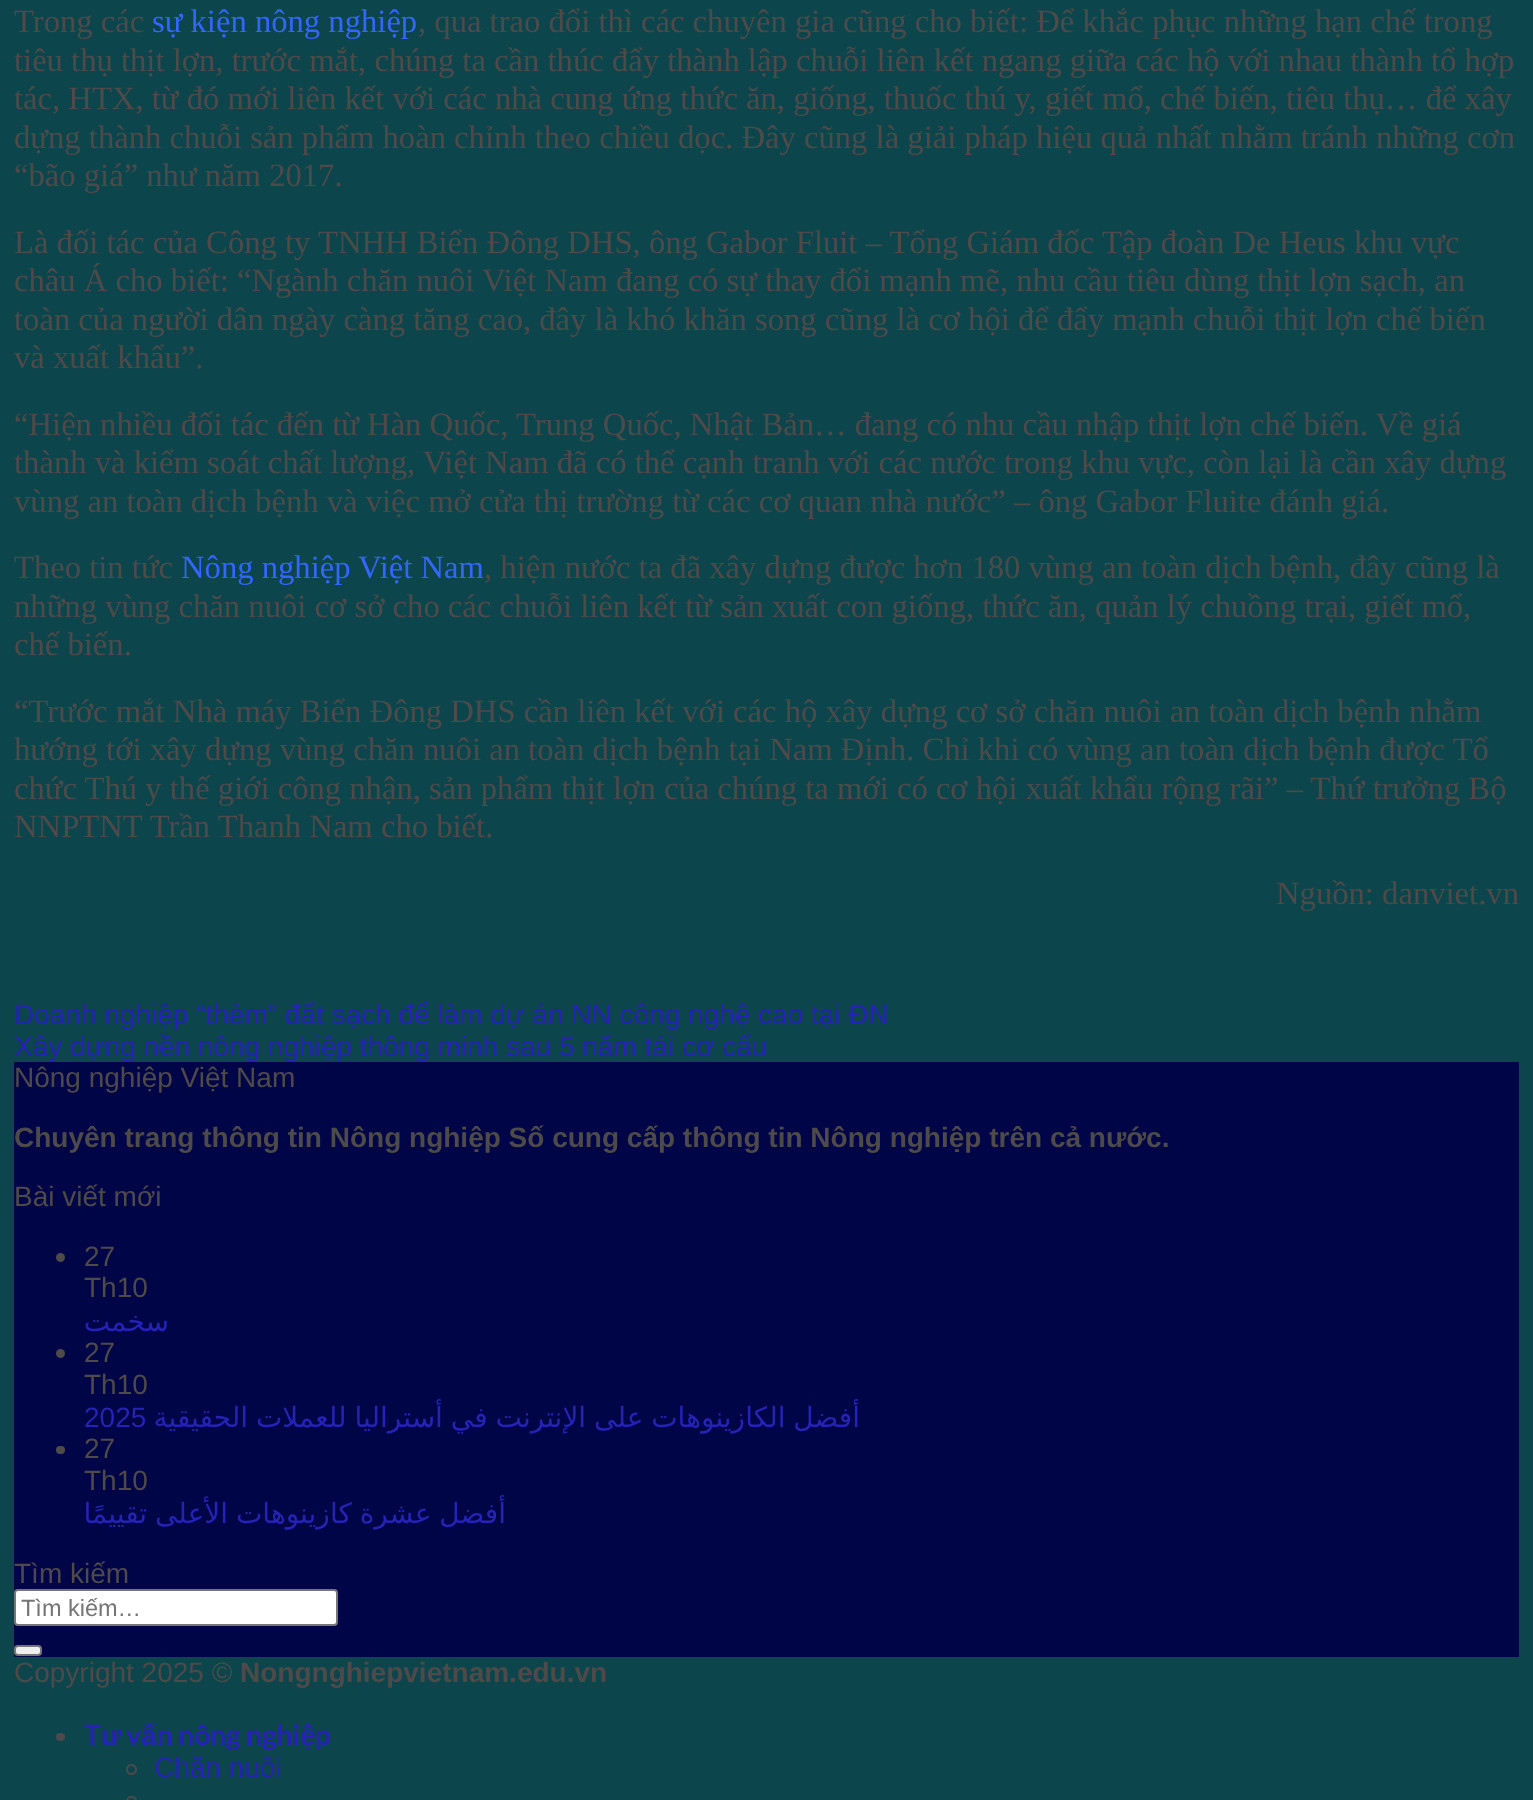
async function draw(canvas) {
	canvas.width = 1533;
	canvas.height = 1800;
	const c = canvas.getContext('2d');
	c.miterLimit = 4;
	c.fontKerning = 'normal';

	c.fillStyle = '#0c464c';
	c.fillRect(0, 0, 1533, 1800);
	c.font = '32.65px Liberation Serif';
	c.fillStyle = '#4e4a4a';
	c.fillText('Trong các', 14, 32);
	c.fillStyle = '#36f';
	c.fillText('sự kiện nông nghiệp', 152, 32);
	c.fillStyle = '#4e4a4a';
	for (const [text, x, y] of [
		[', qua trao đổi thì các chuyên gia cũng cho biết: Để khắc phục những hạn chế trong', 418, 32],
		['tiêu thụ thịt lợn, trước mắt, chúng ta cần thúc đẩy thành lập chuỗi liên kết ngang giữa các hộ với nhau thành tổ hợp', 14, 71],
		['tác, HTX, từ đó mới liên kết với các nhà cung ứng thức ăn, giống, thuốc thú y, giết mổ, chế biến, tiêu thụ… để xây', 14, 109],
		['dựng thành chuỗi sản phẩm hoàn chỉnh theo chiều dọc. Đây cũng là giải pháp hiệu quả nhất nhằm tránh những cơn', 14, 148],
		['“bão giá” như năm 2017.', 14, 186],
		['Là đối tác của Công ty TNHH Biển Đông DHS, ông Gabor Fluit – Tổng Giám đốc Tập đoàn De Heus khu vực', 14, 253],
		['châu Á cho biết: “Ngành chăn nuôi Việt Nam đang có sự thay đổi mạnh mẽ, nhu cầu tiêu dùng thịt lợn sạch, an', 14, 291],
		['toàn của người dân ngày càng tăng cao, đây là khó khăn song cũng là cơ hội để đẩy mạnh chuỗi thịt lợn chế biến', 14, 330],
		['và xuất khẩu”.', 14, 368],
		['“Hiện nhiều đối tác đến từ Hàn Quốc, Trung Quốc, Nhật Bản… đang có nhu cầu nhập thịt lợn chế biến. Về giá', 14, 435],
		['thành và kiểm soát chất lượng, Việt Nam đã có thể cạnh tranh với các nước trong khu vực, còn lại là cần xây dựng', 14, 473],
		['vùng an toàn dịch bệnh và việc mở cửa thị trường từ các cơ quan nhà nước” – ông Gabor Fluite đánh giá.', 14, 512],
		['Theo tin tức', 14, 578],
	]) {
		c.fillText(text, x, y);
	}
	c.fillStyle = '#36f';
	c.fillText('Nông nghiệp Việt Nam', 181, 578);
	c.fillStyle = '#4e4a4a';
	for (const [text, x, y] of [
		[', hiện nước ta đã xây dựng được hơn 180 vùng an toàn dịch bệnh, đây cũng là', 484, 578],
		['những vùng chăn nuôi cơ sở cho các chuỗi liên kết từ sản xuất con giống, thức ăn, quản lý chuồng trại, giết mổ,', 14, 617],
		['chế biến.', 14, 655],
		['“Trước mắt Nhà máy Biển Đông DHS cần liên kết với các hộ xây dựng cơ sở chăn nuôi an toàn dịch bệnh nhằm', 14, 722],
		['hướng tới xây dựng vùng chăn nuôi an toàn dịch bệnh tại Nam Định. Chỉ khi có vùng an toàn dịch bệnh được Tổ', 14, 760],
		['chức Thú y thế giới công nhận, sản phẩm thịt lợn của chúng ta mới có cơ hội xuất khẩu rộng rãi” – Thứ trưởng Bộ', 14, 799],
		['NNPTNT Trần Thanh Nam cho biết.', 14, 837],
		['Nguồn: danviet.vn', 1276, 904],
	]) {
		c.fillText(text, x, y);
	}
	c.font = '28px Liberation Sans';
	c.fillStyle = '#2522b5';
	c.fillText('Doanh nghiệp “thèm” đất sạch để làm dự án NN công nghệ cao tại ĐN', 14, 1024);
	c.fillText('Xây dựng nền nông nghiệp thông minh sau 5 năm tái cơ cấu', 14, 1056);
	c.fillStyle = '#000547';
	c.fillRect(14, 1062, 1505, 595);
	c.fillStyle = '#4e4a4a';
	c.fillText('Nông nghiệp Việt Nam', 14, 1087);
	c.font = 'bold 28px Liberation Sans';
	c.fillText('Chuyên trang thông tin Nông nghiệp Số cung cấp thông tin Nông nghiệp trên cả nước.', 14, 1147);
	c.font = '28px Liberation Sans';
	c.fillText('Bài viết mới', 14, 1206);
	c.beginPath();
	c.arc(60.5, 1257.5, 4.5, 0, 2 * Math.PI);
	c.fill();
	c.fillText('27', 84, 1266);
	c.fillText('Th10', 84, 1297);
	c.direction = 'rtl';
	c.font = '28px DejaVu Sans';
	c.fillStyle = '#2522b5';
	c.fillText('سخمت', 169, 1331);
	c.fillStyle = '#4e4a4a';
	c.beginPath();
	c.arc(60.5, 1353.5, 4.5, 0, 2 * Math.PI);
	c.fill();
	c.direction = 'ltr';
	c.font = '28px Liberation Sans';
	c.fillText('27', 84, 1362);
	c.fillText('Th10', 84, 1394);
	c.fillStyle = '#2522b5';
	c.fillText('2025', 84, 1427);
	c.wordSpacing = '-1px';
	c.direction = 'rtl';
	c.font = '28px DejaVu Sans';
	c.fillText('أفضل الكازينوهات على الإنترنت في أستراليا للعملات الحقيقية', 860, 1427);
	c.fillStyle = '#4e4a4a';
	c.beginPath();
	c.roundRect(56, 1446, 9, 8, 4);
	c.fill();
	c.wordSpacing = '0px';
	c.direction = 'ltr';
	c.font = '28px Liberation Sans';
	c.fillText('27', 84, 1458);
	c.fillText('Th10', 84, 1490);
	c.wordSpacing = '-1px';
	c.direction = 'rtl';
	c.font = '28px DejaVu Sans';
	c.fillStyle = '#2522b5';
	c.fillText('أفضل عشرة كازينوهات الأعلى تقييمًا', 506, 1523);
	c.wordSpacing = '0px';
	c.direction = 'ltr';
	c.font = '28px Liberation Sans';
	c.fillStyle = '#4e4a4a';
	c.fillText('Tìm kiếm', 14, 1583);
	c.fillStyle = '#fff';
	c.beginPath();
	c.roundRect(15, 1590, 322, 35, 3);
	c.fill();
	c.strokeStyle = '#767676';
	c.lineWidth = 2;
	c.stroke();
	c.font = '23.5px Liberation Sans';
	c.fillStyle = '#757575';
	c.fillText('Tìm kiếm…', 21, 1616);
	c.fillStyle = '#efefef';
	c.beginPath();
	c.roundRect(15, 1646, 26, 9, 3);
	c.fill();
	c.stroke();
	c.font = '28px Liberation Sans';
	c.fillStyle = '#4e4a4a';
	c.fillText('Copyright 2025 ©', 14, 1682);
	c.font = 'bold 28px Liberation Sans';
	c.fillText('Nongnghiepvietnam.edu.vn', 240, 1682);
	c.beginPath();
	c.roundRect(56, 1733, 9, 8, 4);
	c.fill();
	c.font = 'bold 28px Lato';
	c.fillStyle = '#2522b5';
	c.fillText('T', 84, 1745);
	c.font = 'bold 28px Liberation Sans';
	c.fillText('ư', 101, 1745);
	c.font = 'bold 28px Lato';
	c.fillText('v', 126, 1745);
	c.font = 'bold 28px Liberation Sans';
	c.fillText('ấ', 141, 1745);
	c.font = 'bold 28px Lato';
	c.fillText('n nông nghi', 157, 1745);
	c.font = 'bold 28px Liberation Sans';
	c.fillText('ệ', 300, 1745);
	c.font = 'bold 28px Lato';
	c.fillText('p', 315, 1745);
	c.beginPath();
	c.arc(131.5, 1769.5, 4.5, 0, 2 * Math.PI);
	c.strokeStyle = '#4e4a4a';
	c.stroke();
	c.font = '28px Liberation Sans';
	c.fillText('Chăn nuôi', 154, 1777);
	c.beginPath();
	c.roundRect(127, 1797, 9, 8, 4);
	c.stroke();
}

draw(document.querySelector('canvas'));
